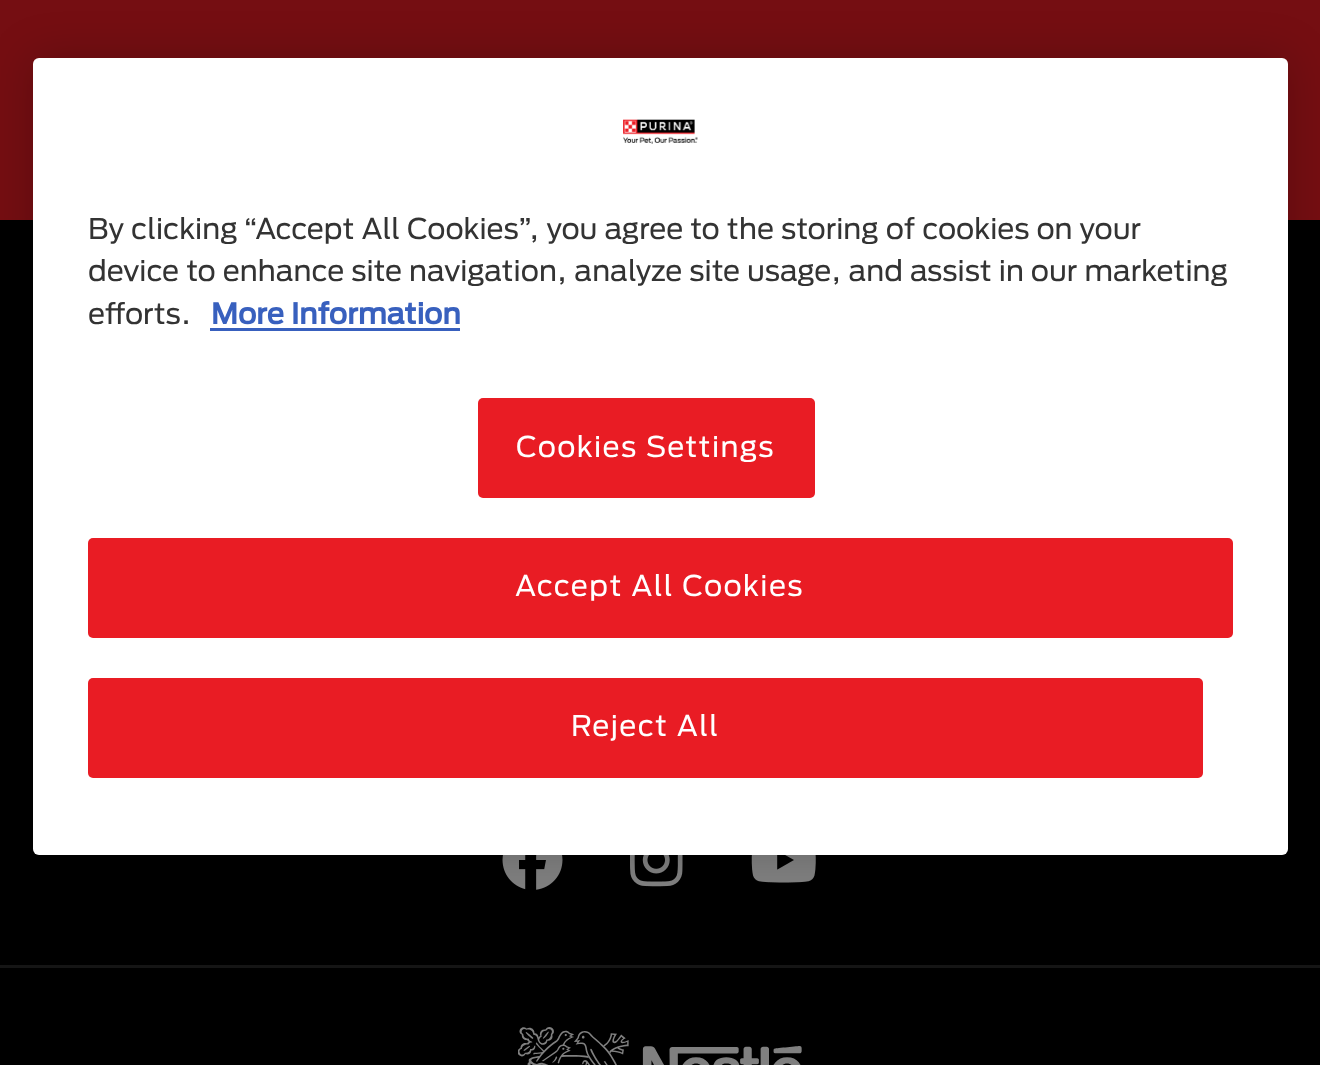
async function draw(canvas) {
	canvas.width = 1320;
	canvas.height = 1065;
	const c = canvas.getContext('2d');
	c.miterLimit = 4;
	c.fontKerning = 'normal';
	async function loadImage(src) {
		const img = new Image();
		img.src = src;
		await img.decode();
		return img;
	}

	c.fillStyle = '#000';
	c.fillRect(0, 0, 1320, 1065);
	c.fillStyle = '#750e12';
	c.fillRect(0, 0, 1320, 220);
	c.drawImage(await loadImage('img1.png'), 502, 855, 61, 35);
	c.drawImage(await loadImage('img2.png'), 630, 855, 53, 32);
	c.drawImage(await loadImage('img3.png'), 751, 855, 65, 28);
	c.fillStyle = '#151515';
	c.fillRect(0, 965, 1320, 3);
	c.drawImage(await loadImage('img4.png'), 518, 1027, 284, 38);
	c.fillStyle = '#00000033';
	c.filter = 'blur(22.5px)';
	c.beginPath();
	c.roundRect(33, 58, 1255, 797, 6);
	c.fill();
	c.filter = 'none';
	c.fillStyle = '#fff';
	c.beginPath();
	c.roundRect(33, 58, 1255, 797, 6);
	c.fill();
	c.drawImage(await loadImage('img5.png'), 623, 119, 75, 25);
	c.font = '28.45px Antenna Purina';
	c.fillStyle = '#333';
	for (const [text, x, y] of [
		['By clicking “Accept All Cookies”, you agree to the storing of cookies on your', 88, 239],
		['device to enhance site navigation, analyze site usage, and assist in our marketing', 88, 281],
		['efforts.', 88, 324],
	]) {
		c.fillText(text, x, y);
	}
	c.font = 'bold 28.45px Antenna Purina';
	c.fillStyle = '#3860be';
	c.fillText('More Information', 211, 324);
	c.fillRect(210, 328, 250, 3);
	c.fillStyle = '#e91c24';
	c.beginPath();
	c.roundRect(478, 398, 337, 100, 5);
	c.fill();
	c.letterSpacing = '1.4px';
	c.font = '28.45px Antenna Purina';
	c.fillStyle = '#fff';
	c.fillText('Cookies Settings', 516, 457);
	c.fillStyle = '#e91c24';
	c.beginPath();
	c.roundRect(88, 538, 1145, 100, 5);
	c.fill();
	c.fillStyle = '#fff';
	c.fillText('Accept All Cookies', 515, 596);
	c.fillStyle = '#e91c24';
	c.beginPath();
	c.roundRect(88, 678, 1115, 100, 5);
	c.fill();
	c.fillStyle = '#fff';
	c.fillText('Reject All', 571, 736);
}

draw(document.querySelector('canvas'));
